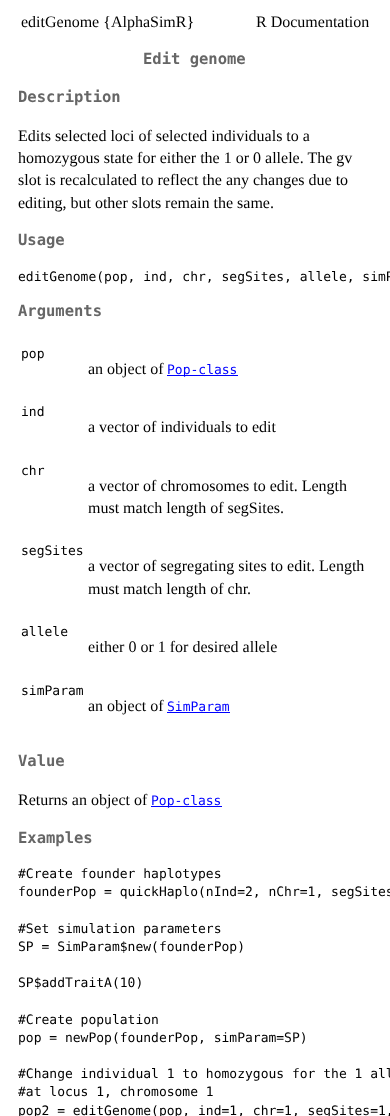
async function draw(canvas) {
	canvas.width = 390;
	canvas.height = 1116;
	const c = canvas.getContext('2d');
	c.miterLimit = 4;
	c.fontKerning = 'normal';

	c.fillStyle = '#fff';
	c.fillRect(0, 0, 390, 1116);
	c.font = '16px Liberation Serif';
	c.fillStyle = '#000';
	c.fillText('editGenome {AlphaSimR}', 21, 27);
	c.fillText('R Documentation', 256, 27);
	c.font = 'bold 15.5px DejaVu Sans Mono';
	c.fillStyle = '#666';
	c.fillText('Edit genome', 143, 64);
	c.fillText('Description', 18, 102);
	c.font = '16px Liberation Serif';
	c.fillStyle = '#000';
	for (const [text, x, y] of [
		['Edits selected loci of selected individuals to a', 18, 141],
		['homozygous state for either the 1 or 0 allele. The gv', 18, 163],
		['slot is recalculated to reflect the any changes due to', 18, 185],
		['editing, but other slots remain the same.', 18, 208],
	]) {
		c.fillText(text, x, y);
	}
	c.font = 'bold 15.5px DejaVu Sans Mono';
	c.fillStyle = '#666';
	c.fillText('Usage', 18, 245);
	c.font = '13px DejaVu Sans Mono';
	c.fillStyle = '#000';
	c.fillText('editGenome(pop, ind, chr, segSites, allele, simP', 18, 281);
	c.font = 'bold 15.5px DejaVu Sans Mono';
	c.fillStyle = '#666';
	c.fillText('Arguments', 18, 316);
	c.font = '13px DejaVu Sans Mono';
	c.fillStyle = '#000';
	c.fillText('pop', 21, 358);
	c.font = '16px Liberation Serif';
	c.fillText('an object of', 88, 374);
	c.fillStyle = '#00f';
	c.fillRect(167, 375, 71, 1);
	c.font = '13px DejaVu Sans Mono';
	c.fillText('Pop-class', 167, 374);
	c.fillStyle = '#000';
	c.fillText('ind', 21, 416);
	c.font = '16px Liberation Serif';
	c.fillText('a vector of individuals to edit', 88, 432);
	c.font = '13px DejaVu Sans Mono';
	c.fillText('chr', 21, 475);
	c.font = '16px Liberation Serif';
	c.fillText('a vector of chromosomes to edit. Length', 88, 491);
	c.fillText('must match length of segSites.', 88, 513);
	c.font = '13px DejaVu Sans Mono';
	c.fillText('segSites', 21, 555);
	c.font = '16px Liberation Serif';
	c.fillText('a vector of segregating sites to edit. Length', 88, 571);
	c.fillText('must match length of chr.', 88, 594);
	c.font = '13px DejaVu Sans Mono';
	c.fillText('allele', 21, 636);
	c.font = '16px Liberation Serif';
	c.fillText('either 0 or 1 for desired allele', 88, 652);
	c.font = '13px DejaVu Sans Mono';
	c.fillText('simParam', 21, 695);
	c.font = '16px Liberation Serif';
	c.fillText('an object of', 88, 711);
	c.font = '13px DejaVu Sans Mono';
	c.fillStyle = '#00f';
	c.fillText('SimParam', 167, 711);
	c.fillRect(167, 712, 63, 1);
	c.font = 'bold 15.5px DejaVu Sans Mono';
	c.fillStyle = '#666';
	c.fillText('Value', 18, 766);
	c.font = '16px Liberation Serif';
	c.fillStyle = '#000';
	c.fillText('Returns an object of', 18, 805);
	c.fillStyle = '#00f';
	c.fillRect(151, 806, 71, 1);
	c.font = '13px DejaVu Sans Mono';
	c.fillText('Pop-class', 151, 805);
	c.font = 'bold 15.5px DejaVu Sans Mono';
	c.fillStyle = '#666';
	c.fillText('Examples', 18, 843);
	c.font = '13px DejaVu Sans Mono';
	c.fillStyle = '#000';
	for (const [text, x, y] of [
		['#Create founder haplotypes', 18, 878],
		['founderPop = quickHaplo(nInd=2, nChr=1, segSites', 18, 896],
		['#Set simulation parameters', 18, 933],
		['SP = SimParam$new(founderPop)', 18, 951],
		['SP$addTraitA(10)', 18, 987],
		['#Create population', 18, 1024],
		['pop = newPop(founderPop, simParam=SP)', 18, 1042],
		['#Change individual 1 to homozygous for the 1 all', 18, 1078],
		['#at locus 1, chromosome 1', 18, 1096],
		['pop2 = editGenome(pop, ind=1, chr=1, segSites=1,', 18, 1115],
	]) {
		c.fillText(text, x, y);
	}
}

draw(document.querySelector('canvas'));
